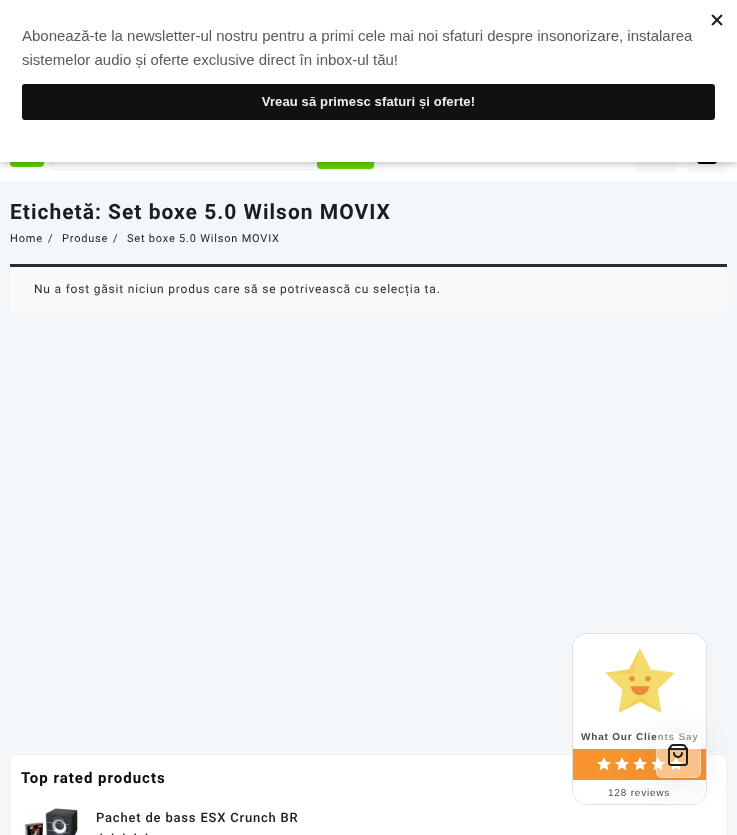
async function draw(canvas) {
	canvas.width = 737;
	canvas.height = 835;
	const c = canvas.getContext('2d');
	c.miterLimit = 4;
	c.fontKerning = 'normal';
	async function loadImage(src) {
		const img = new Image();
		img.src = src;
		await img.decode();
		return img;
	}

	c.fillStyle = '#f4f7f9';
	c.fillRect(0, 0, 737, 835);
	c.fillStyle = '#fff';
	c.fillRect(0, 162, 737, 19);
	c.fillStyle = '#5fd300';
	c.beginPath();
	c.roundRect(10, 133, 34, 34, 4);
	c.fill();
	c.beginPath();
	c.roundRect(52.5, 133.5, 322, 36, 3.5);
	c.strokeStyle = '#e7f5ff';
	c.stroke();
	c.fillStyle = '#fff';
	c.beginPath();
	c.roundRect(53, 134, 264, 35, 4);
	c.fill();
	c.fillStyle = '#5fd300';
	c.beginPath();
	c.roundRect(317, 134, 57, 35, 4);
	c.fill();
	c.fillStyle = '#f7f8f9';
	c.beginPath();
	c.roundRect(637, 133, 40, 40, 4);
	c.fill();
	c.beginPath();
	c.roundRect(687, 133, 40, 40, 3);
	c.fill();
	c.drawImage(await loadImage('img2.png'), 697, 162, 20, 2);
	c.fillStyle = '#00000033';
	c.filter = 'blur(3px)';
	c.beginPath();
	c.rect(0, 3, 737, 162);
	c.fill();
	c.filter = 'none';
	c.fillStyle = '#fff';
	c.fillRect(0, 0, 737, 162);
	c.drawImage(await loadImage('img1.png'), 22, 14, 701, 106);
	c.letterSpacing = '1px';
	c.font = 'bold 21px Roboto';
	c.fillStyle = '#1c1d1e';
	c.fillText('Etichetă: Set boxe 5.0 Wilson MOVIX', 10, 219);
	c.letterSpacing = '0.8px';
	c.font = '11px Roboto';
	for (const [text, x, y] of [
		['Home', 10, 242],
		['/', 48, 242],
		['Produse', 62, 242],
		['/', 113, 242],
		['Set boxe 5.0 Wilson MOVIX', 127, 242],
	]) {
		c.fillText(text, x, y);
	}
	c.fillStyle = '#fafafa';
	c.fillRect(10, 267, 717, 45);
	c.fillStyle = '#292e32';
	c.fillRect(10, 264, 717, 3);
	c.font = '12px Roboto';
	c.fillText('Nu a fost găsit niciun produs care să se potrivească cu selecția ta.', 34, 293);
	c.fillStyle = '#fff';
	c.beginPath();
	c.roundRect(10.5, 754.5, 716, 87, 5.5);
	c.fill();
	c.strokeStyle = '#f1f1f1';
	c.stroke();
	c.letterSpacing = '1px';
	c.font = 'bold 15px Roboto';
	c.fillStyle = '#090909';
	c.fillText('Top rated products', 21, 783);
	c.drawImage(await loadImage('img3.png'), 24, 808, 54, 27);
	c.letterSpacing = '0.8px';
	c.font = '500 13px Roboto';
	c.fillStyle = '#1c1d1e';
	c.fillText('Pachet de bass ESX Crunch BR', 96, 822);
	c.drawImage(await loadImage('img4.png'), 100, 833, 48, 2);
	c.drawImage(await loadImage('img5.png'), 100, 833, 48, 2);
	c.beginPath();
	c.roundRect(572.5, 633.5, 134, 171, 14.5);
	c.strokeStyle = '#dfdfdf';
	c.stroke();
	c.fillStyle = '#fff';
	c.beginPath();
	c.roundRect(573, 634, 133, 115, [14, 14, 0, 0]);
	c.fill();
	c.fillStyle = '#f8942d';
	c.fillRect(573, 749, 133, 31);
	c.fillStyle = '#fff';
	c.beginPath();
	c.roundRect(573, 780, 133, 24, [0, 0, 14, 14]);
	c.fill();
	c.drawImage(await loadImage('img8.png'), 633, 757, 14, 13);
	c.drawImage(await loadImage('img9.png'), 633, 757, 14, 13);
	c.drawImage(await loadImage('img8.png'), 651, 757, 14, 13);
	c.drawImage(await loadImage('img9.png'), 651, 757, 14, 13);
	c.drawImage(await loadImage('img10.png'), 670, 757, 13, 13);
	c.drawImage(await loadImage('img11.png'), 670, 757, 12, 13);
	c.save();
	c.beginPath();
	c.moveTo(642, 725);
	c.lineTo(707, 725);
	c.lineTo(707, 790);
	c.lineTo(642, 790);
	c.closePath();
	c.moveTo(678.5, 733);
	c.bezierCurveTo(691, 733, 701, 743, 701, 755.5);
	c.bezierCurveTo(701, 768, 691, 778, 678.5, 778);
	c.bezierCurveTo(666, 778, 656, 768, 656, 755.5);
	c.bezierCurveTo(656, 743, 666, 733, 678.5, 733);
	c.closePath();
	c.clip('evenodd');
	c.fillStyle = '#dddddd1a';
	c.filter = 'blur(3px)';
	c.beginPath();
	c.roundRect(652, 735, 45, 45, 22.5);
	c.fill();
	c.filter = 'none';
	c.restore();
	c.drawImage(await loadImage('img7.png'), 605, 648, 70, 65);
	c.drawImage(await loadImage('img8.png'), 597, 757, 14, 13);
	c.drawImage(await loadImage('img9.png'), 597, 757, 14, 13);
	c.drawImage(await loadImage('img8.png'), 615, 757, 14, 13);
	c.drawImage(await loadImage('img9.png'), 615, 757, 14, 13);
	c.save();
	c.beginPath();
	c.moveTo(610, 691);
	c.lineTo(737, 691);
	c.lineTo(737, 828);
	c.lineTo(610, 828);
	c.closePath();
	c.moveTo(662, 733);
	c.lineTo(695, 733);
	c.bezierCurveTo(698.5, 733, 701, 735.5, 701, 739);
	c.lineTo(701, 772);
	c.bezierCurveTo(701, 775.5, 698.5, 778, 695, 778);
	c.lineTo(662, 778);
	c.bezierCurveTo(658.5, 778, 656, 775.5, 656, 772);
	c.lineTo(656, 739);
	c.bezierCurveTo(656, 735.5, 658.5, 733, 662, 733);
	c.closePath();
	c.clip('evenodd');
	c.fillStyle = '#0000001a';
	c.filter = 'blur(15px)';
	c.beginPath();
	c.roundRect(656, 737, 45, 45, 6);
	c.fill();
	c.filter = 'none';
	c.restore();
	c.font = 'bold 10px Liberation Sans';
	c.fillStyle = '#4c4c4c';
	c.fillText('What Our Clients Say', 581, 740);
	c.fillStyle = '#ffffff70';
	c.beginPath();
	c.roundRect(656, 733, 45, 45, 6);
	c.fill();
	c.beginPath();
	c.roundRect(656.5, 733.5, 44, 44, 5.5);
	c.strokeStyle = '#ffffff45';
	c.stroke();
	c.drawImage(await loadImage('img6.png'), 668, 744, 20, 22);
	c.font = '10px Liberation Sans';
	c.fillStyle = '#4c4c4c';
	c.fillText('128 reviews', 608, 796);
}

draw(document.querySelector('canvas'));
